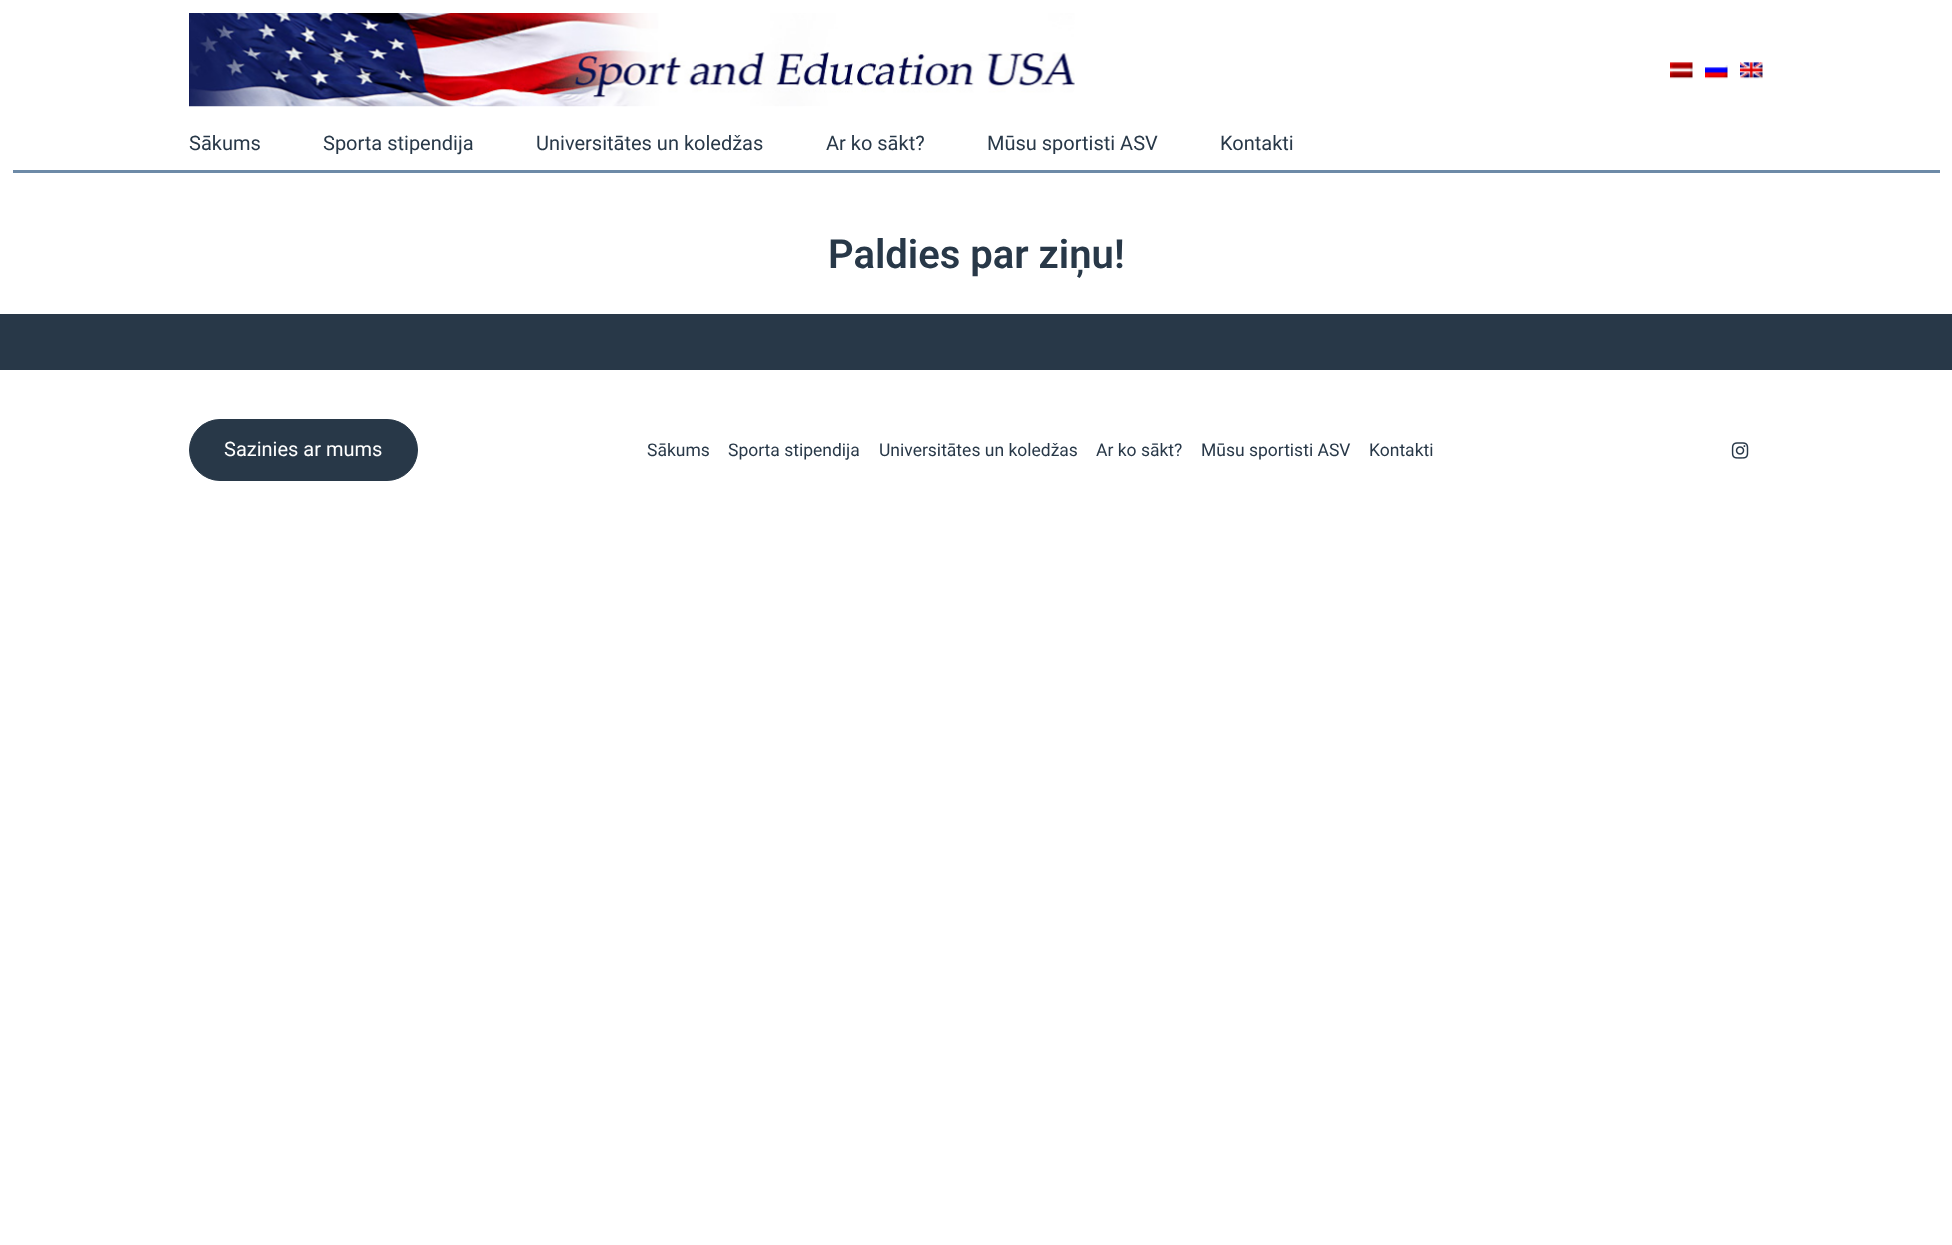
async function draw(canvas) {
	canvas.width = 1952;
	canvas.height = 1245;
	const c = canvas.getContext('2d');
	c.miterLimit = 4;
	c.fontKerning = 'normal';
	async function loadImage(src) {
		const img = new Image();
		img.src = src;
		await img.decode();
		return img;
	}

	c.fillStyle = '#fff';
	c.fillRect(0, 0, 1952, 1245);
	c.drawImage(await loadImage('img1.png'), 189, 13, 886, 94);
	c.drawImage(await loadImage('img2.png'), 1670, 62, 23, 17);
	c.drawImage(await loadImage('img3.png'), 1705, 65, 23, 14);
	c.drawImage(await loadImage('img4.png'), 1740, 62, 23, 17);
	c.font = '20px Roboto';
	c.fillStyle = '#283848';
	for (const [text, x, y] of [
		['Sākums', 189, 150],
		['Sporta stipendija', 323, 150],
		['Universitātes un koledžas', 536, 150],
		['Ar ko sākt?', 826, 150],
		['Mūsu sportisti ASV', 987, 150],
		['Kontakti', 1220, 150],
	]) {
		c.fillText(text, x, y);
	}
	c.fillStyle = '#6d8aa7';
	c.fillRect(13, 170, 1927, 3);
	c.font = '600 40px Roboto';
	c.fillStyle = '#283848';
	c.fillText('Paldies par ziņu!', 828, 268);
	c.fillRect(0, 314, 1952, 56);
	c.beginPath();
	c.roundRect(189.5, 419.5, 228, 61, 30.5);
	c.fill();
	c.strokeStyle = '#283848';
	c.stroke();
	c.font = '20px Roboto';
	c.fillStyle = '#fff';
	c.fillText('Sazinies ar mums', 224, 456);
	c.font = '17.5px Roboto';
	c.fillStyle = '#283848';
	for (const [text, x, y] of [
		['Sākums', 647, 456],
		['Sporta stipendija', 728, 456],
		['Universitātes un koledžas', 879, 456],
		['Ar ko sākt?', 1096, 456],
		['Mūsu sportisti ASV', 1201, 456],
		['Kontakti', 1369, 456],
	]) {
		c.fillText(text, x, y);
	}
	c.drawImage(await loadImage('img5.png'), 1731, 442, 18, 17);
}

draw(document.querySelector('canvas'));
